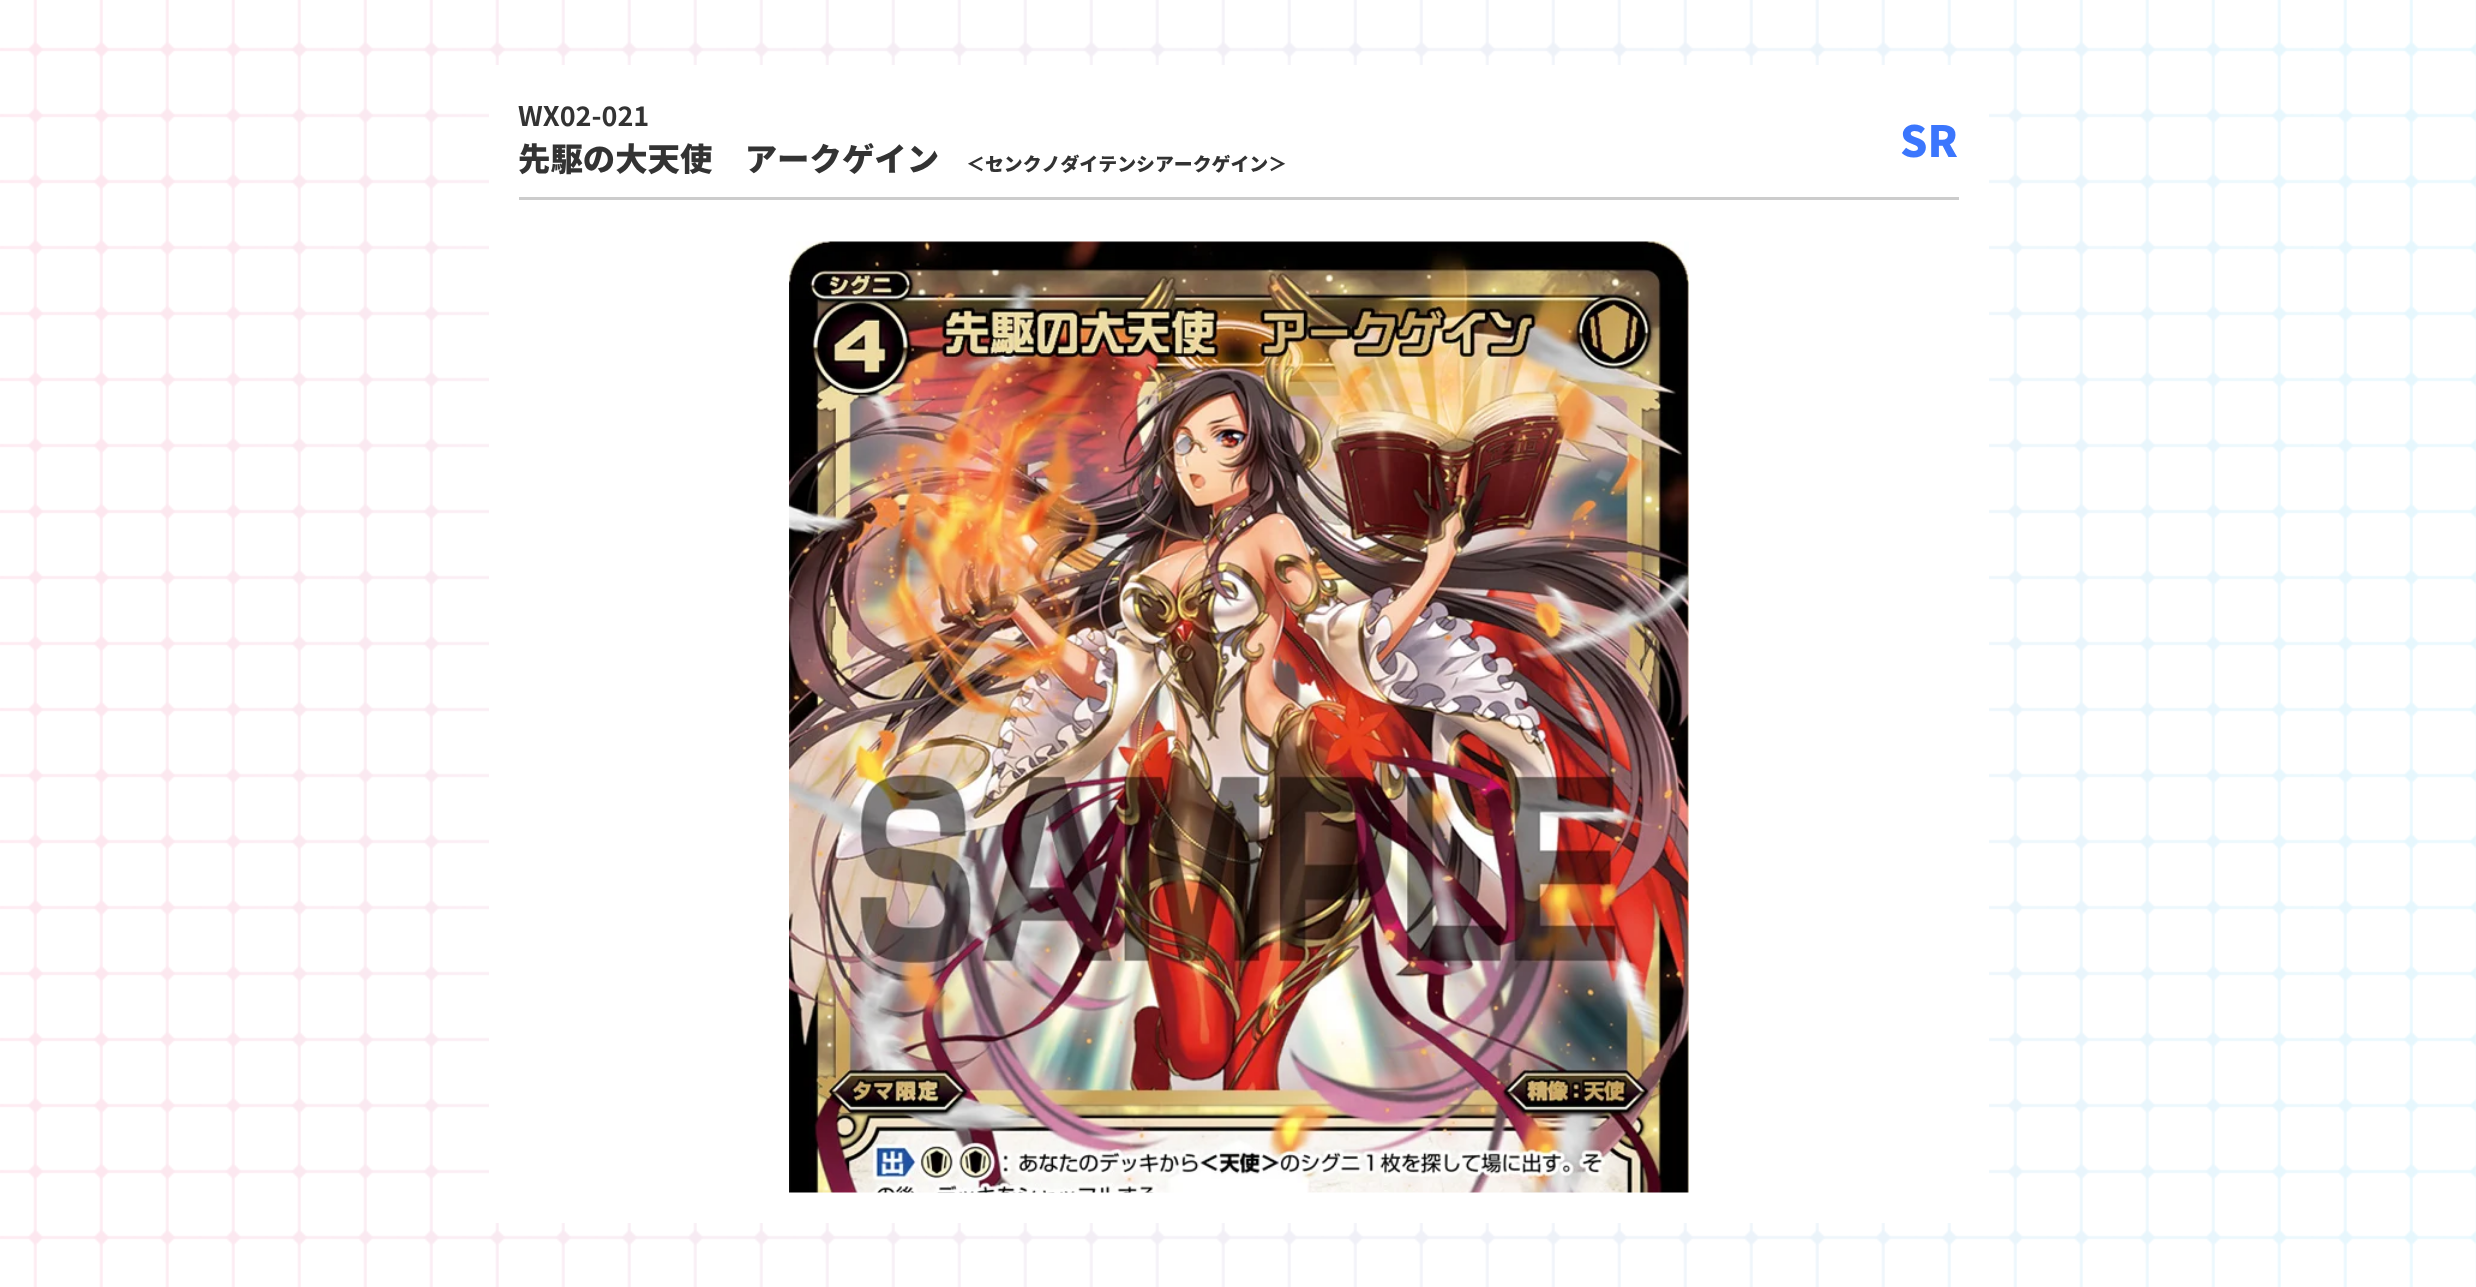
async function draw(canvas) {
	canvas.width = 2476;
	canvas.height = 1287;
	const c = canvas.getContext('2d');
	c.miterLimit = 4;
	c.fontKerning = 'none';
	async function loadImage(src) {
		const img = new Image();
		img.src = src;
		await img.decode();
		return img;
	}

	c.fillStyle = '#fff';
	c.fillRect(0, 0, 2476, 1287);
	c.drawImage(await loadImage('img1.png'), 0, 0, 2476, 1287);
	c.fillRect(489, 65, 1500, 1158);
	c.fillStyle = '#ccc';
	c.fillRect(519, 197, 1440, 3);
	c.font = 'bold 27px Noto Sans JP';
	c.fillStyle = '#333';
	c.fillText('WX02-021', 518, 126);
	c.font = '900 32.4px Noto Sans JP';
	c.fillText('先駆の大天使　アークゲイン', 518, 171);
	c.font = '900 18.9px Noto Sans JP';
	c.fillText('＜センクノダイテンシアークゲイン＞', 966, 171);
	c.font = '900 43px Noto Sans JP';
	c.fillStyle = '#3b76fd';
	c.fillText('SR', 1900, 157);
	c.drawImage(await loadImage('img2.png'), 789, 241, 900, 952);
}

draw(document.querySelector('canvas'));
